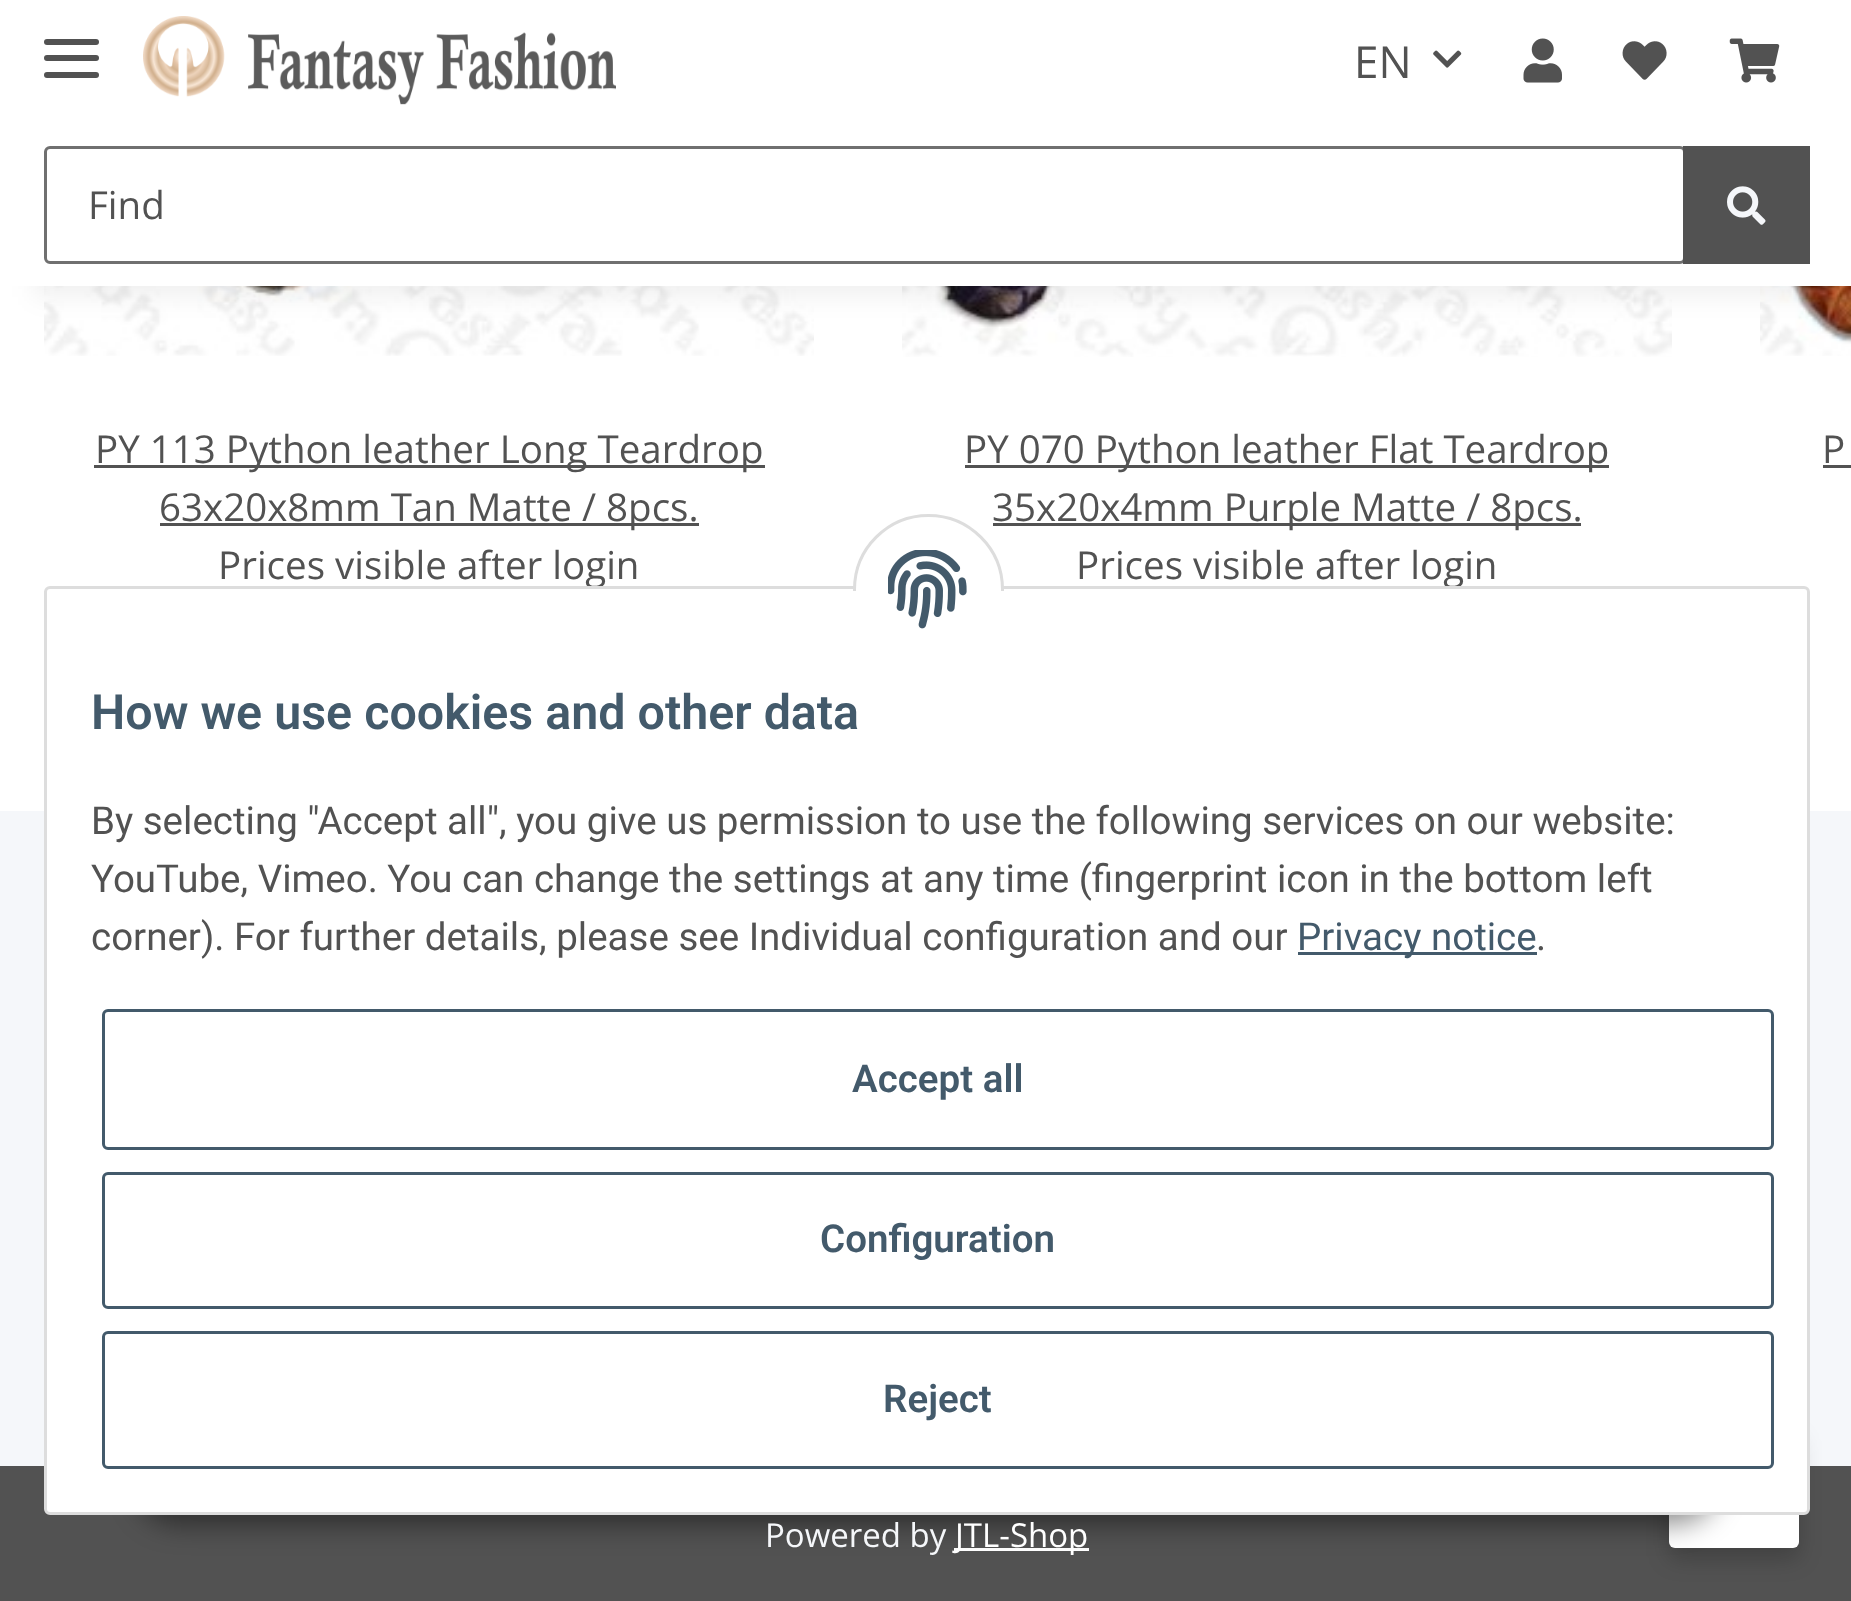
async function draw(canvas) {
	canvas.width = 1851;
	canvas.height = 1601;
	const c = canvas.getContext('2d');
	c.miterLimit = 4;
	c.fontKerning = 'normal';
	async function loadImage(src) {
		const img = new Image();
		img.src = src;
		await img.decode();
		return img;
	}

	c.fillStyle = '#f5f7fa';
	c.fillRect(0, 0, 1851, 1601);
	c.fillStyle = '#fff';
	c.fillRect(0, 286, 1851, 525);
	c.drawImage(await loadImage('img7.png'), 44, 286, 770, 70);
	c.drawImage(await loadImage('img8.png'), 902, 286, 770, 71);
	c.drawImage(await loadImage('img9.png'), 1760, 286, 91, 70);
	c.fillStyle = '#0000000f';
	c.filter = 'blur(12.5px)';
	c.beginPath();
	c.rect(33, 77, 1788, 220);
	c.fill();
	c.filter = 'none';
	c.fillStyle = '#fff';
	c.fillRect(0, 0, 1851, 286);
	c.fillStyle = '#525252';
	c.beginPath();
	c.roundRect(44, 55, 55, 6, 3);
	c.fill();
	c.beginPath();
	c.roundRect(44, 39, 55, 6, 3);
	c.fill();
	c.beginPath();
	c.roundRect(44, 72, 55, 6, 3);
	c.fill();
	c.drawImage(await loadImage('img1.png'), 143, 16, 473, 89);
	c.font = '44px Open Sans';
	c.fillText('EN', 1354, 78);
	c.drawImage(await loadImage('img2.png'), 1433, 50, 29, 18);
	c.drawImage(await loadImage('img3.png'), 1523, 38, 39, 45);
	c.drawImage(await loadImage('img4.png'), 1622, 41, 45, 39);
	c.drawImage(await loadImage('img5.png'), 1729, 38, 51, 45);
	c.beginPath();
	c.roundRect(45.5, 147.5, 1639, 115, 4.5);
	c.strokeStyle = '#707070';
	c.lineWidth = 3;
	c.stroke();
	c.font = '38.5px Open Sans';
	c.fillText('Find', 88, 219);
	c.fillRect(1683, 146, 127, 118);
	c.drawImage(await loadImage('img6.png'), 1727, 186, 39, 39);
	c.fillRect(94, 465, 671, 3);
	c.fillText('PY 113 Python leather Long Teardrop', 95, 463);
	c.fillRect(160, 523, 539, 3);
	c.fillText('63x20x8mm Tan Matte / 8pcs.', 159, 521);
	c.fillText('Prices visible after login', 218, 579);
	c.fillRect(965, 465, 644, 3);
	c.fillText('PY 070 Python leather Flat Teardrop', 964, 463);
	c.fillRect(993, 523, 588, 3);
	for (const [text, x, y] of [
		['35x20x4mm Purple Matte / 8pcs.', 992, 521],
		['Prices visible after login', 1076, 579],
		['P', 1822, 463],
	]) {
		c.fillText(text, x, y);
	}
	for (const [x, y, w, h, color] of [
		[1823, 465, 28, 3, '#525252'],
		[0, 1466, 1851, 135, '#525252'],
		[954, 1548, 135, 3, '#fff'],
	]) {
		c.fillStyle = color;
		c.fillRect(x, y, w, h);
	}
	c.fillStyle = '#00000033';
	c.filter = 'blur(11px)';
	c.beginPath();
	c.roundRect(1669, 1438, 130, 121, 6);
	c.fill();
	c.filter = 'none';
	c.fillStyle = '#fff';
	c.beginPath();
	c.roundRect(1669, 1427, 130, 121, 6);
	c.fill();
	c.fillStyle = '#00000073';
	c.filter = 'blur(14px)';
	c.beginPath();
	c.roundRect(135, 1436, 1584, 88, 44);
	c.fill();
	c.filter = 'none';
	c.fillStyle = '#fff';
	c.beginPath();
	c.roundRect(45.5, 587.5, 1763, 926, 4.5);
	c.fill();
	c.strokeStyle = '#ddd';
	c.stroke();
	c.beginPath();
	c.roundRect(854.5, 515.5, 148, 149, 74);
	c.fill();
	c.stroke();
	c.fillRect(853, 591, 151, 75);
	c.drawImage(await loadImage('img10.png'), 888, 550, 79, 79);
	c.font = '600 48.4px Roboto';
	c.fillStyle = '#435a6b';
	c.fillText('How we use cookies and other data', 91, 729);
	c.font = '38.5px Roboto';
	c.fillStyle = '#525252';
	for (const [text, x, y] of [
		['By selecting "Accept all", you give us permission to use the following services on our website:', 91, 834],
		['YouTube, Vimeo. You can change the settings at any time (fingerprint icon in the bottom left', 91, 892],
		['corner). For further details, please see Individual configuration and our', 91, 950],
	]) {
		c.fillText(text, x, y);
	}
	c.fillStyle = '#435a6b';
	c.fillRect(1298, 952, 239, 3);
	c.fillText('Privacy notice', 1297, 950);
	c.fillStyle = '#525252';
	c.fillText('.', 1536, 950);
	c.beginPath();
	c.roundRect(103.5, 1010.5, 1669, 138, 4.5);
	c.strokeStyle = '#435a6b';
	c.stroke();
	c.font = '600 38.5px Roboto';
	c.fillStyle = '#435a6b';
	c.fillText('Accept all', 852, 1092);
	c.beginPath();
	c.roundRect(103.5, 1173.5, 1669, 134, 4.5);
	c.stroke();
	c.fillText('Configuration', 820, 1252);
	c.beginPath();
	c.roundRect(103.5, 1332.5, 1669, 135, 4.5);
	c.stroke();
	c.fillText('Reject', 883, 1412);
	c.font = '33px Open Sans';
	c.fillStyle = '#f5f7fa';
	c.fillText('Powered by', 765, 1547);
	c.fillStyle = '#fff';
	c.fillText('JTL-Shop', 955, 1547);
}

draw(document.querySelector('canvas'));
